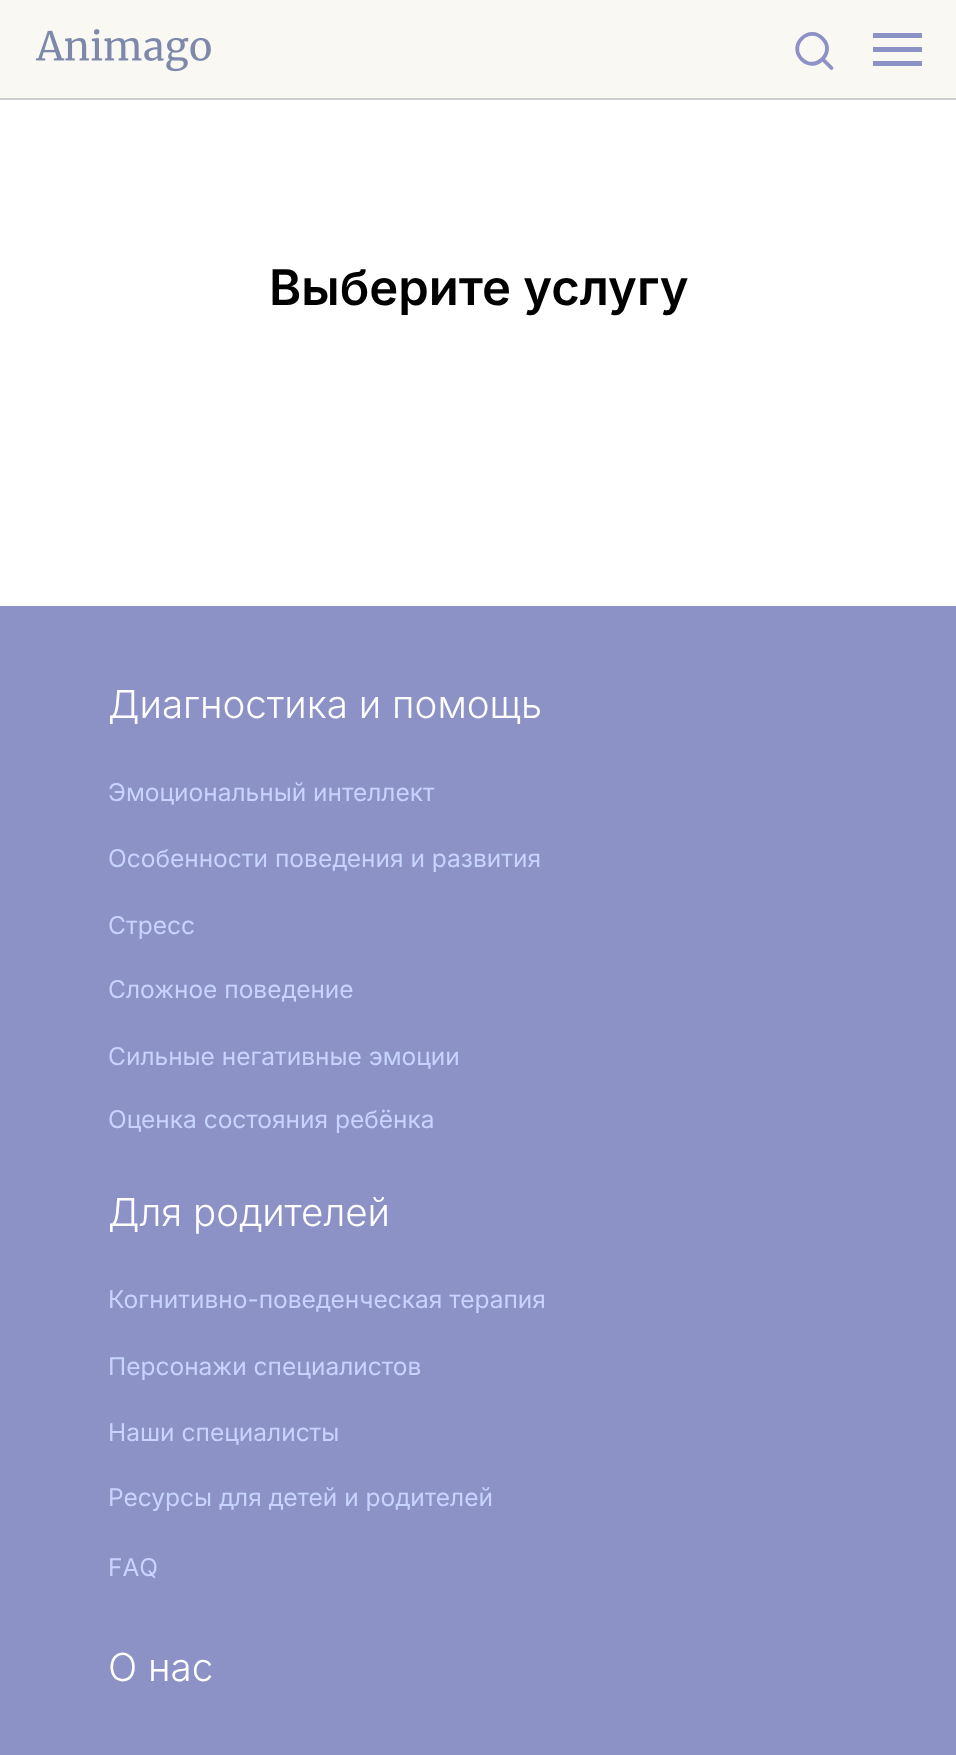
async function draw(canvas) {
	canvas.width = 956;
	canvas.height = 1755;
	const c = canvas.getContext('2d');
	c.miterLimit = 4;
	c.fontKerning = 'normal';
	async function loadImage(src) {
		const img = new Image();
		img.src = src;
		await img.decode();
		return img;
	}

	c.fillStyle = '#fff';
	c.fillRect(0, 0, 956, 1755);
	c.fillStyle = '#faf8f2';
	c.fillRect(0, 0, 956, 98);
	c.fillStyle = '#cdcdcd';
	c.fillRect(0, 98, 956, 2);
	c.drawImage(await loadImage('img1.png'), 35, 29, 176, 43);
	c.beginPath();
	c.moveTo(823, 39);
	c.bezierCurveTo(836, 53, 814.5, 73, 801.5, 59);
	c.bezierCurveTo(788, 44.5, 809.5, 24.5, 823, 39);
	c.closePath();
	c.strokeStyle = '#8c91c6';
	c.lineWidth = 3.8;
	c.stroke();
	c.beginPath();
	c.moveTo(824, 60.5);
	c.lineTo(831.5, 68);
	c.lineCap = 'round';
	c.stroke();
	for (const [x, y, w, h, color] of [
		[873, 33, 49, 5, '#8c91c6'],
		[873, 47, 49, 5, '#8c91c6'],
		[873, 61, 49, 5, '#8c91c6'],
	]) {
		c.fillStyle = color;
		c.fillRect(x, y, w, h);
	}
	c.font = '600 49px Inter';
	c.fillStyle = '#000';
	c.fillText('Выберите услугу', 269, 305);
	c.fillStyle = '#8c91c6';
	c.fillRect(0, 606, 956, 1149);
	c.font = '300 38.5px Inter';
	c.fillStyle = '#fff';
	c.fillText('Диагностика и помощь', 108, 718);
	c.font = '24.5px Inter';
	c.fillStyle = '#c8d4ff';
	for (const [text, x, y] of [
		['Эмоциональный интеллект', 108, 801],
		['Особенности поведения и развития', 108, 867],
		['Стресс', 108, 934],
		['Сложное поведение', 108, 998],
		['Сильные негативные эмоции', 108, 1065],
		['Оценка состояния ребёнка', 108, 1128],
	]) {
		c.fillText(text, x, y);
	}
	c.font = '300 38.5px Inter';
	c.fillStyle = '#fff';
	c.fillText('Для родителей', 108, 1226);
	c.font = '24.5px Inter';
	c.fillStyle = '#c8d4ff';
	for (const [text, x, y] of [
		['Когнитивно-поведенческая терапия', 108, 1308],
		['Персонажи специалистов', 108, 1375],
		['Наши специалисты', 108, 1441],
		['Ресурсы для детей и родителей', 108, 1506],
		['FAQ', 108, 1576],
	]) {
		c.fillText(text, x, y);
	}
	c.font = '300 38.5px Inter';
	c.fillStyle = '#fff';
	c.fillText('О нас', 108, 1681);
}

draw(document.querySelector('canvas'));
